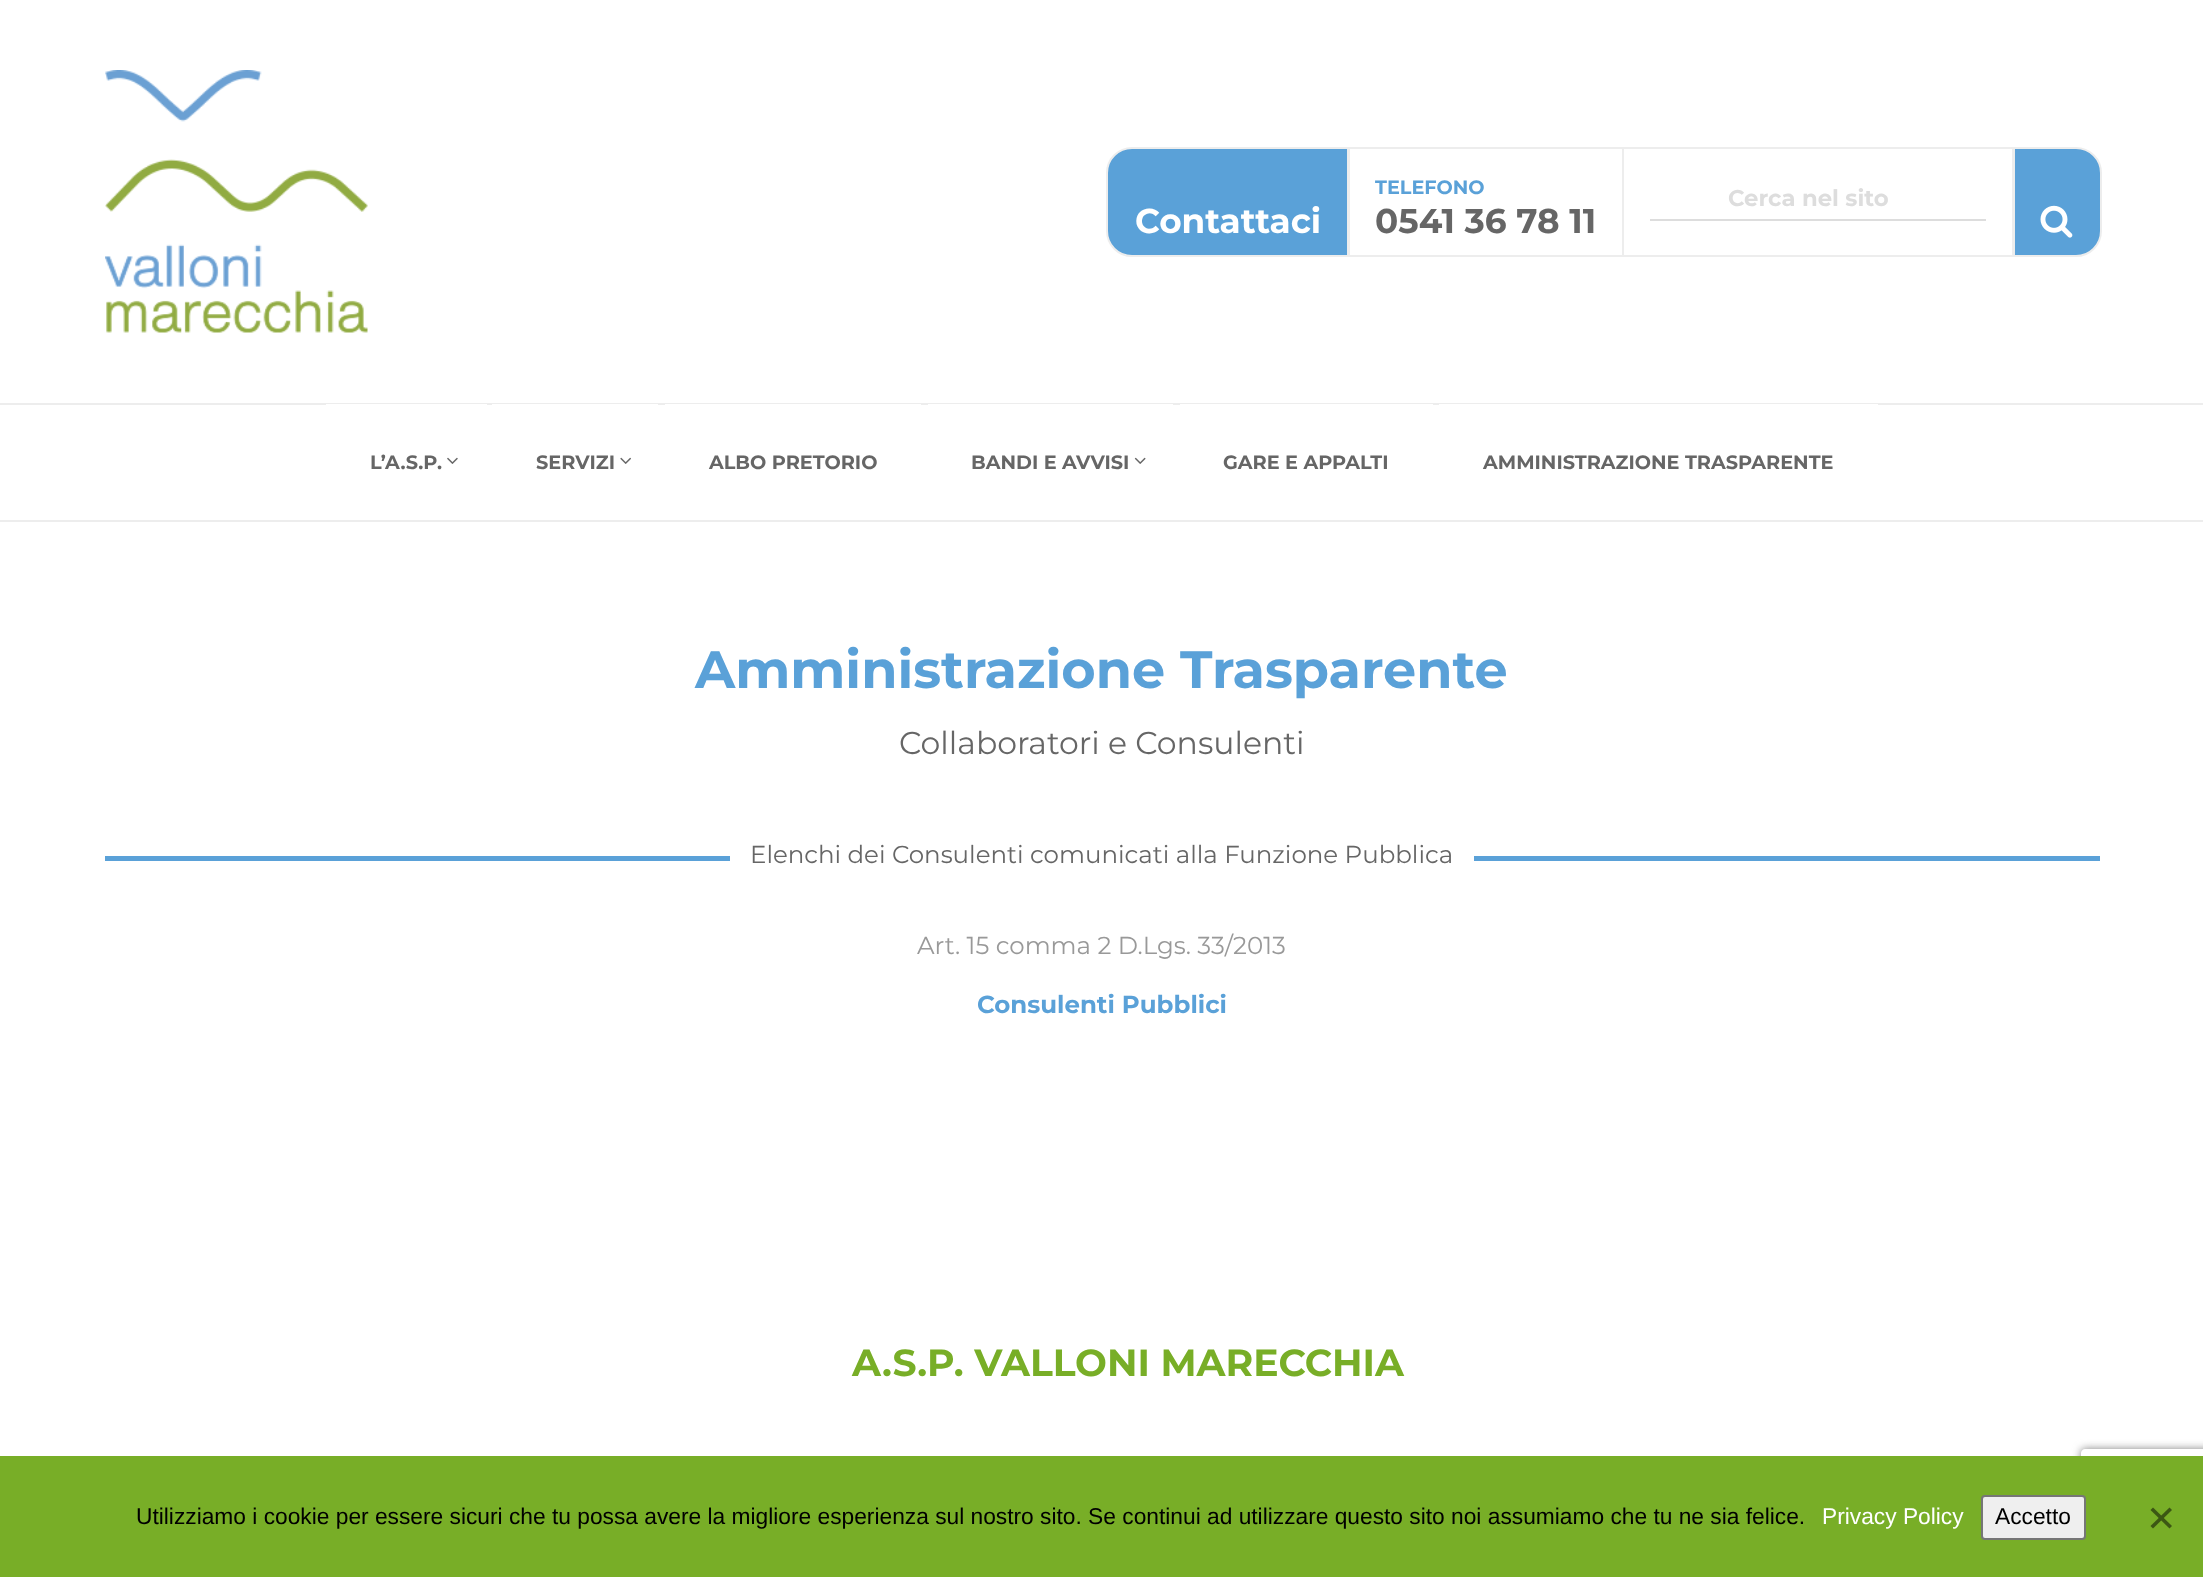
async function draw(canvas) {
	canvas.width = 2203;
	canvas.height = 1577;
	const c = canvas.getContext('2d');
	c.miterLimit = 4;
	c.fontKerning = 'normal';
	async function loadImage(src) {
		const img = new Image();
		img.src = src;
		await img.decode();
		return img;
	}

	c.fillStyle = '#fff';
	c.fillRect(0, 0, 2203, 1577);
	c.drawImage(await loadImage('img1.png'), 105, 70, 263, 263);
	c.fillStyle = '#5aa1d8';
	c.beginPath();
	c.roundRect(1107, 148, 241, 108, [25, 0, 0, 25]);
	c.fill();
	c.strokeStyle = '#ededed';
	c.lineWidth = 2;
	c.stroke();
	c.strokeRect(1349, 148, 274, 108);
	c.font = 'bold 19.25px Montserrat';
	c.fillText('TELEFONO', 1375, 194);
	c.font = 'bold 34.25px Montserrat';
	c.fillStyle = '#666';
	c.fillText('0541 36 78 11', 1375, 233);
	c.strokeRect(1623, 148, 390, 108);
	c.fillStyle = '#ddd';
	c.fillRect(1650, 219, 336, 2);
	c.font = 'bold 22.75px Montserrat';
	c.fillText('Cerca nel sito', 1728, 206);
	c.fillStyle = '#5aa1d8';
	c.beginPath();
	c.roundRect(2014, 148, 87, 108, [0, 25, 25, 0]);
	c.fill();
	c.stroke();
	c.drawImage(await loadImage('img2.png'), 2040, 205, 33, 33);
	c.font = 'bold 34.25px Montserrat';
	c.fillStyle = '#fff';
	c.fillText('Contattaci', 1135, 233);
	for (const [x, y, w, h, color] of [
		[0, 403, 2203, 2, '#ededed'],
		[0, 520, 2203, 2, '#ededed'],
		[326, 404, 161, 1, '#fff'],
	]) {
		c.fillStyle = color;
		c.fillRect(x, y, w, h);
	}
	c.font = 'bold 19.25px Montserrat';
	c.fillStyle = '#666';
	c.fillText('L’A.S.P.', 370, 469);
	c.drawImage(await loadImage('img3.png'), 447, 457, 11, 7);
	c.fillStyle = '#fff';
	c.fillRect(492, 404, 166, 1);
	c.fillStyle = '#666';
	c.fillText('SERVIZI', 536, 469);
	c.drawImage(await loadImage('img4.png'), 620, 457, 11, 7);
	c.fillStyle = '#fff';
	c.fillRect(665, 404, 256, 1);
	c.fillStyle = '#666';
	c.fillText('ALBO PRETORIO', 709, 469);
	c.fillStyle = '#fff';
	c.fillRect(928, 404, 245, 1);
	c.fillStyle = '#666';
	c.fillText('BANDI E AVVISI', 971, 469);
	c.drawImage(await loadImage('img5.png'), 1134, 457, 12, 7);
	c.fillStyle = '#fff';
	c.fillRect(1180, 404, 253, 1);
	c.fillStyle = '#666';
	c.fillText('GARE E APPALTI', 1223, 469);
	c.fillStyle = '#fff';
	c.fillRect(1439, 404, 439, 1);
	c.fillStyle = '#666';
	c.fillText('AMMINISTRAZIONE TRASPARENTE', 1483, 469);
	c.font = 'bold 52.5px Montserrat';
	c.fillStyle = '#5aa1d8';
	c.fillText('Amministrazione Trasparente', 695, 688);
	c.font = '31.5px Montserrat';
	c.fillStyle = '#666';
	c.fillText('Collaboratori e Consulenti', 899, 754);
	c.fillStyle = '#5aa1d8';
	c.fillRect(105, 856, 625, 5);
	c.font = '24.5px Montserrat';
	c.fillStyle = '#666';
	c.fillText('Elenchi dei Consulenti comunicati alla Funzione Pubblica', 750, 863);
	c.fillStyle = '#5aa1d8';
	c.fillRect(1474, 856, 626, 5);
	c.fillStyle = '#999';
	c.fillText('Art. 15 comma 2 D.Lgs. 33/2013', 917, 954);
	c.font = 'bold 24.5px Montserrat';
	c.fillStyle = '#5aa1d8';
	c.fillText('Consulenti Pubblici', 977, 1013);
	c.font = 'bold 37.75px Montserrat';
	c.fillStyle = '#78ae27';
	c.fillText('A.S.P. VALLONI MARECCHIA', 852, 1376);
	c.save();
	c.beginPath();
	c.moveTo(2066, 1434);
	c.lineTo(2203, 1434);
	c.lineTo(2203, 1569);
	c.lineTo(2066, 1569);
	c.closePath();
	c.moveTo(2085, 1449);
	c.lineTo(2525, 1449);
	c.bezierCurveTo(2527, 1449, 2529, 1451, 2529, 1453);
	c.lineTo(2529, 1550);
	c.bezierCurveTo(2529, 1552, 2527, 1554, 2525, 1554);
	c.lineTo(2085, 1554);
	c.bezierCurveTo(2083, 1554, 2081, 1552, 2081, 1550);
	c.lineTo(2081, 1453);
	c.bezierCurveTo(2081, 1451, 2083, 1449, 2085, 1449);
	c.closePath();
	c.clip('evenodd');
	c.fillStyle = '#808080';
	c.filter = 'blur(4.5px)';
	c.beginPath();
	c.roundRect(2081, 1449, 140, 105, 4);
	c.fill();
	c.filter = 'none';
	c.restore();
	c.fillRect(0, 1456, 2203, 121);
	c.font = '22.75px Liberation Sans';
	c.fillStyle = '#000';
	c.fillText('Utilizziamo i cookie per essere sicuri che tu possa avere la migliore esperienza sul nostro sito. Se continui ad utilizzare questo sito noi assumiamo che tu ne sia felice.', 136, 1524);
	c.fillStyle = '#fff';
	c.fillText('Privacy Policy', 1822, 1524);
	c.fillStyle = '#efefef';
	c.beginPath();
	c.roundRect(1982, 1496, 103, 43, 3);
	c.fill();
	c.strokeStyle = '#767676';
	c.stroke();
	c.fillStyle = '#000';
	c.fillText('Accetto', 1995, 1524);
	c.fillStyle = '#3c5714';
	c.beginPath();
	c.moveTo(2169.5, 1507.5);
	c.lineTo(2172, 1510);
	c.lineTo(2153, 1528.5);
	c.lineTo(2150.5, 1526);
	c.closePath();
	c.fill();
	c.beginPath();
	c.moveTo(2150.5, 1510);
	c.lineTo(2153, 1507.5);
	c.lineTo(2172, 1526);
	c.lineTo(2169.5, 1528.5);
	c.closePath();
	c.fill();
}

draw(document.querySelector('canvas'));
